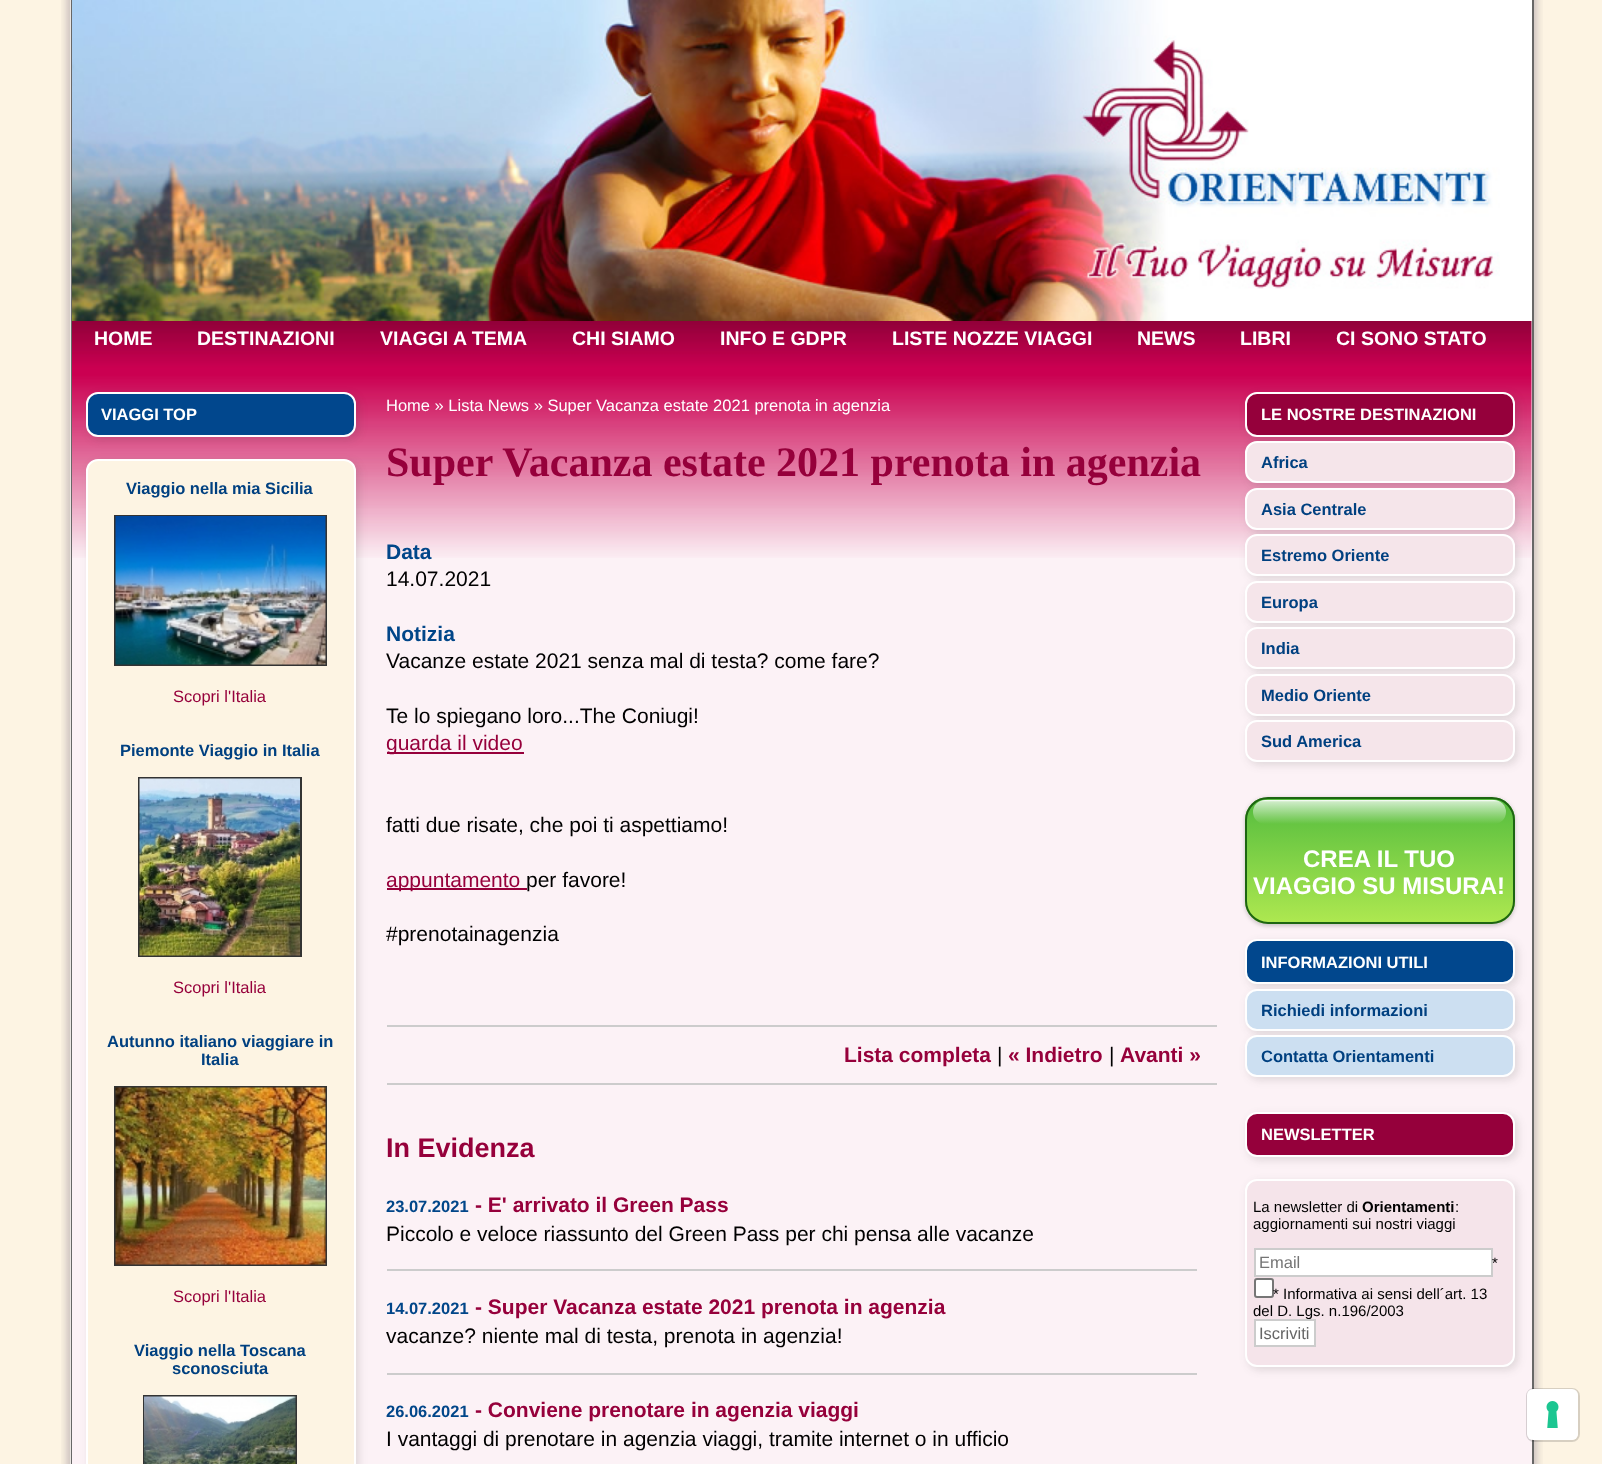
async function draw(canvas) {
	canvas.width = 1602;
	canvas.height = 1464;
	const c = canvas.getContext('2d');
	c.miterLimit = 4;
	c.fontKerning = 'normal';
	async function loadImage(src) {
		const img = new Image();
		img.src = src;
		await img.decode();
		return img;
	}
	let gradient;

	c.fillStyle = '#fdf4e3';
	c.fillRect(0, 0, 1602, 1464);
	c.drawImage(await loadImage('img1.png'), 61, 0, 1482, 1464);
	c.fillStyle = '#676767';
	c.fillRect(1532, 0, 2, 1464);
	c.fillRect(71, 0, 1, 1464);
	c.drawImage(await loadImage('img2.png'), 72, 0, 1428, 321);
	c.drawImage(await loadImage('img3.png'), 72, 321, 1460, 48);
	c.font = 'bold 19.5px Liberation Sans';
	c.fillStyle = '#fff';
	for (const [text, x, y] of [
		['HOME', 94, 345],
		['DESTINAZIONI', 197, 345],
		['VIAGGI A TEMA', 380, 345],
		['CHI SIAMO', 572, 345],
		['INFO E GDPR', 720, 345],
		['LISTE NOZZE VIAGGI', 892, 345],
		['NEWS', 1137, 345],
		['LIBRI', 1240, 345],
		['CI SONO STATO', 1336, 345],
	]) {
		c.fillText(text, x, y);
	}
	c.fillStyle = '#fcf2f6';
	c.fillRect(72, 369, 1460, 1095);
	c.drawImage(await loadImage('img4.png'), 72, 369, 1460, 189);
	c.fillStyle = '#32323224';
	c.filter = 'blur(4px)';
	c.beginPath();
	c.roundRect(89, 395, 270, 45, 12);
	c.fill();
	c.filter = 'none';
	c.fillStyle = '#01478d';
	c.beginPath();
	c.roundRect(87, 393, 268, 43, 11);
	c.fill();
	c.strokeStyle = '#fff';
	c.lineWidth = 2;
	c.stroke();
	c.font = 'bold 16.5px Liberation Sans';
	c.fillStyle = '#fff';
	c.fillText('VIAGGI TOP', 101, 420);
	c.fillStyle = '#32323224';
	c.filter = 'blur(4px)';
	c.beginPath();
	c.roundRect(89, 462, 270, 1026, 12);
	c.fill();
	c.filter = 'none';
	c.fillStyle = '#fdf4e3';
	c.beginPath();
	c.roundRect(87, 460, 268, 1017, 11);
	c.fill();
	c.stroke();
	c.fillStyle = '#004080';
	c.fillText('Viaggio nella mia Sicilia', 126, 494);
	c.strokeStyle = '#333';
	c.strokeRect(115, 516, 211, 149);
	c.drawImage(await loadImage('img5.png'), 115, 516, 211, 149);
	c.font = '16.5px Liberation Sans';
	c.fillStyle = '#96003b';
	c.fillText('Scopri l\'Italia', 173, 702);
	c.font = 'bold 16.5px Liberation Sans';
	c.fillStyle = '#004080';
	c.fillText('Piemonte Viaggio in Italia', 120, 756);
	c.strokeRect(139, 778, 162, 178);
	c.drawImage(await loadImage('img6.png'), 139, 778, 161, 178);
	c.font = '16.5px Liberation Sans';
	c.fillStyle = '#96003b';
	c.fillText('Scopri l\'Italia', 173, 993);
	c.font = 'bold 16.5px Liberation Sans';
	c.fillStyle = '#004080';
	c.fillText('Autunno italiano viaggiare in', 107, 1047);
	c.fillText('Italia', 201, 1065);
	c.strokeRect(115, 1087, 211, 178);
	c.drawImage(await loadImage('img7.png'), 115, 1087, 211, 178);
	c.font = '16.5px Liberation Sans';
	c.fillStyle = '#96003b';
	c.fillText('Scopri l\'Italia', 173, 1302);
	c.font = 'bold 16.5px Liberation Sans';
	c.fillStyle = '#004080';
	c.fillText('Viaggio nella Toscana', 134, 1356);
	c.fillText('sconosciuta', 172, 1374);
	c.strokeRect(144, 1396, 152, 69);
	c.drawImage(await loadImage('img8.png'), 144, 1396, 152, 68);
	c.font = '16.5px Liberation Sans';
	c.fillStyle = '#fff';
	c.fillText('Home » Lista News » Super Vacanza estate 2021 prenota in agenzia', 386, 411);
	c.font = 'bold 42px Liberation Serif';
	c.fillStyle = '#96003b';
	c.fillText('Super Vacanza estate 2021 prenota in agenzia', 386, 476);
	c.font = 'bold 21px Liberation Sans';
	c.fillStyle = '#014689';
	c.fillText('Data', 386, 559);
	c.font = '21px Liberation Sans';
	c.fillStyle = '#000';
	c.fillText('14.07.2021', 386, 586);
	c.font = 'bold 21px Liberation Sans';
	c.fillStyle = '#014689';
	c.fillText('Notizia', 386, 641);
	c.font = '21px Liberation Sans';
	c.fillStyle = '#000';
	c.fillText('Vacanze estate 2021 senza mal di testa? come fare?', 386, 668);
	c.fillText('Te lo spiegano loro...The Coniugi!', 386, 723);
	c.fillStyle = '#96003b';
	c.fillRect(387, 752, 137, 2);
	c.fillText('guarda il video', 386, 750);
	c.fillStyle = '#000';
	c.fillText('fatti due risate, che poi ti aspettiamo!', 386, 832);
	c.fillStyle = '#96003b';
	c.fillRect(387, 888, 140, 2);
	c.fillText('appuntamento', 386, 887);
	c.fillStyle = '#000';
	c.fillText('per favore!', 526, 887);
	c.fillText('#prenotainagenzia', 386, 941);
	c.fillStyle = '#ccc';
	c.fillRect(387, 1025, 830, 2);
	c.fillRect(387, 1083, 830, 2);
	c.font = 'bold 21px Liberation Sans';
	c.fillStyle = '#96003b';
	c.fillText('Lista completa', 844, 1062);
	c.font = '21px Liberation Sans';
	c.fillStyle = '#000';
	c.fillText('|', 997, 1062);
	c.font = 'bold 21px Liberation Sans';
	c.fillStyle = '#96003b';
	c.fillText('« Indietro', 1008, 1062);
	c.font = '21px Liberation Sans';
	c.fillStyle = '#000';
	c.fillText('|', 1109, 1062);
	c.font = 'bold 21px Liberation Sans';
	c.fillStyle = '#96003b';
	c.fillText('Avanti »', 1120, 1062);
	c.font = 'bold 27px Liberation Sans';
	c.fillText('In Evidenza', 386, 1157);
	c.fillStyle = '#ccc';
	c.fillRect(387, 1269, 810, 2);
	c.font = 'bold 16.5px Liberation Sans';
	c.fillStyle = '#014689';
	c.fillText('23.07.2021', 386, 1212);
	c.font = 'bold 21px Liberation Sans';
	c.fillStyle = '#96003b';
	c.fillText('- E\' arrivato il Green Pass', 475, 1212);
	c.font = '21px Liberation Sans';
	c.fillStyle = '#000';
	c.fillText('Piccolo e veloce riassunto del Green Pass per chi pensa alle vacanze', 386, 1241);
	c.fillStyle = '#ccc';
	c.fillRect(387, 1373, 810, 2);
	c.font = 'bold 16.5px Liberation Sans';
	c.fillStyle = '#014689';
	c.fillText('14.07.2021', 386, 1314);
	c.font = 'bold 21px Liberation Sans';
	c.fillStyle = '#96003b';
	c.fillText('- Super Vacanza estate 2021 prenota in agenzia', 475, 1314);
	c.font = '21px Liberation Sans';
	c.fillStyle = '#000';
	c.fillText('vacanze? niente mal di testa, prenota in agenzia!', 386, 1343);
	c.font = 'bold 16.5px Liberation Sans';
	c.fillStyle = '#014689';
	c.fillText('26.06.2021', 386, 1417);
	c.font = 'bold 21px Liberation Sans';
	c.fillStyle = '#96003b';
	c.fillText('- Conviene prenotare in agenzia viaggi', 475, 1417);
	c.font = '21px Liberation Sans';
	c.fillStyle = '#000';
	c.fillText('I vantaggi di prenotare in agenzia viaggi, tramite internet o in ufficio', 386, 1446);
	c.fillStyle = '#32323224';
	c.filter = 'blur(4px)';
	c.beginPath();
	c.roundRect(1248, 395, 270, 45, 12);
	c.fill();
	c.filter = 'none';
	c.fillStyle = '#95003b';
	c.beginPath();
	c.roundRect(1246, 393, 268, 43, 11);
	c.fill();
	c.strokeStyle = '#fff';
	c.stroke();
	c.font = 'bold 16.5px Liberation Sans';
	c.fillStyle = '#fff';
	c.fillText('LE NOSTRE DESTINAZIONI', 1261, 420);
	c.fillStyle = '#32323224';
	c.filter = 'blur(4px)';
	c.beginPath();
	c.roundRect(1248, 444, 270, 42, 12);
	c.fill();
	c.filter = 'none';
	c.fillStyle = '#f5e5ea';
	c.beginPath();
	c.roundRect(1246, 442, 268, 40, 11);
	c.fill();
	c.stroke();
	c.fillStyle = '#004080';
	c.fillText('Africa', 1261, 468);
	c.fillStyle = '#32323224';
	c.filter = 'blur(4px)';
	c.beginPath();
	c.roundRect(1248, 491, 270, 42, 12);
	c.fill();
	c.filter = 'none';
	c.fillStyle = '#f5e5ea';
	c.beginPath();
	c.roundRect(1246, 489, 268, 40, 11);
	c.fill();
	c.stroke();
	c.fillStyle = '#004080';
	c.fillText('Asia Centrale', 1261, 515);
	c.fillStyle = '#32323224';
	c.filter = 'blur(4px)';
	c.beginPath();
	c.roundRect(1248, 537, 270, 42, 12);
	c.fill();
	c.filter = 'none';
	c.fillStyle = '#f5e5ea';
	c.beginPath();
	c.roundRect(1246, 535, 268, 40, 11);
	c.fill();
	c.stroke();
	c.fillStyle = '#004080';
	c.fillText('Estremo Oriente', 1261, 561);
	c.fillStyle = '#32323224';
	c.filter = 'blur(4px)';
	c.beginPath();
	c.roundRect(1248, 584, 270, 42, 12);
	c.fill();
	c.filter = 'none';
	c.fillStyle = '#f5e5ea';
	c.beginPath();
	c.roundRect(1246, 582, 268, 40, 11);
	c.fill();
	c.stroke();
	c.fillStyle = '#004080';
	c.fillText('Europa', 1261, 608);
	c.fillStyle = '#32323224';
	c.filter = 'blur(4px)';
	c.beginPath();
	c.roundRect(1248, 630, 270, 42, 12);
	c.fill();
	c.filter = 'none';
	c.fillStyle = '#f5e5ea';
	c.beginPath();
	c.roundRect(1246, 628, 268, 40, 11);
	c.fill();
	c.stroke();
	c.fillStyle = '#004080';
	c.fillText('India', 1261, 654);
	c.fillStyle = '#32323224';
	c.filter = 'blur(4px)';
	c.beginPath();
	c.roundRect(1248, 677, 270, 42, 12);
	c.fill();
	c.filter = 'none';
	c.fillStyle = '#f5e5ea';
	c.beginPath();
	c.roundRect(1246, 675, 268, 40, 11);
	c.fill();
	c.stroke();
	c.fillStyle = '#004080';
	c.fillText('Medio Oriente', 1261, 701);
	c.fillStyle = '#32323224';
	c.filter = 'blur(4px)';
	c.beginPath();
	c.roundRect(1248, 723, 270, 42, 12);
	c.fill();
	c.filter = 'none';
	c.fillStyle = '#f5e5ea';
	c.beginPath();
	c.roundRect(1246, 721, 268, 40, 11);
	c.fill();
	c.stroke();
	c.fillStyle = '#004080';
	c.fillText('Sud America', 1261, 747);
	c.fillStyle = '#00000033';
	c.filter = 'blur(2px)';
	c.beginPath();
	c.roundRect(1245, 798, 270, 128, 23);
	c.fill();
	c.filter = 'none';
	c.save();
	c.beginPath();
	c.roundRect(1245, 797, 270, 127, 23);
	c.clip();
	gradient = c.createLinearGradient(1380, 798, 1380, 923);
	gradient.addColorStop(0, '#54bc3e');
	gradient.addColorStop(1, '#aee850');
	c.fillStyle = gradient;
	c.fillRect(1245, 798, 270, 125);
	c.restore();
	c.beginPath();
	c.roundRect(1246, 798, 268, 125, 22);
	c.strokeStyle = '#1d6511';
	c.stroke();
	gradient = c.createLinearGradient(1379, 800, 1379, 824);
	gradient.addColorStop(0, '#fff');
	gradient.addColorStop(0.08, '#ffffffb3');
	gradient.addColorStop(1, '#ffffff00');
	c.fillStyle = gradient;
	c.beginPath();
	c.roundRect(1253, 800, 253, 24, 12);
	c.fill();
	c.font = 'bold 24px Liberation Sans';
	c.fillStyle = '#fff';
	c.fillText('CREA IL TUO', 1303, 867);
	c.fillText('VIAGGIO SU MISURA!', 1253, 894);
	c.fillStyle = '#32323224';
	c.filter = 'blur(4px)';
	c.beginPath();
	c.roundRect(1248, 942, 270, 45, 12);
	c.fill();
	c.filter = 'none';
	c.fillStyle = '#01478d';
	c.beginPath();
	c.roundRect(1246, 940, 268, 43, 11);
	c.fill();
	c.strokeStyle = '#fff';
	c.stroke();
	c.font = 'bold 16.5px Liberation Sans';
	c.fillStyle = '#fff';
	c.fillText('INFORMAZIONI UTILI', 1261, 968);
	c.fillStyle = '#32323224';
	c.filter = 'blur(4px)';
	c.beginPath();
	c.roundRect(1248, 992, 270, 42, 12);
	c.fill();
	c.filter = 'none';
	c.fillStyle = '#ccdff1';
	c.beginPath();
	c.roundRect(1246, 990, 268, 40, 11);
	c.fill();
	c.stroke();
	c.fillStyle = '#004080';
	c.fillText('Richiedi informazioni', 1261, 1016);
	c.fillStyle = '#32323224';
	c.filter = 'blur(4px)';
	c.beginPath();
	c.roundRect(1248, 1038, 270, 42, 12);
	c.fill();
	c.filter = 'none';
	c.fillStyle = '#ccdff1';
	c.beginPath();
	c.roundRect(1246, 1036, 268, 40, 11);
	c.fill();
	c.stroke();
	c.fillStyle = '#004080';
	c.fillText('Contatta Orientamenti', 1261, 1062);
	c.fillStyle = '#32323224';
	c.filter = 'blur(4px)';
	c.beginPath();
	c.roundRect(1248, 1115, 270, 45, 12);
	c.fill();
	c.filter = 'none';
	c.fillStyle = '#95003b';
	c.beginPath();
	c.roundRect(1246, 1113, 268, 43, 11);
	c.fill();
	c.stroke();
	c.fillStyle = '#fff';
	c.fillText('NEWSLETTER', 1261, 1140);
	c.fillStyle = '#32323224';
	c.filter = 'blur(4px)';
	c.beginPath();
	c.roundRect(1248, 1182, 270, 188, 12);
	c.fill();
	c.filter = 'none';
	c.fillStyle = '#f5e4ea';
	c.beginPath();
	c.roundRect(1246, 1180, 268, 186, 11);
	c.fill();
	c.stroke();
	c.font = '15px Liberation Sans';
	c.fillStyle = '#000';
	c.fillText('La newsletter di', 1253, 1212);
	c.font = 'bold 15px Liberation Sans';
	c.fillText('Orientamenti', 1362, 1212);
	c.font = '15px Liberation Sans';
	c.fillText(':', 1455, 1212);
	c.fillText('aggiornamenti sui nostri viaggi', 1253, 1229);
	c.fillStyle = '#fff';
	c.beginPath();
	c.rect(1255, 1249, 237, 27);
	c.fill();
	c.strokeStyle = '#ccc';
	c.stroke();
	c.font = '16.5px Liberation Sans';
	c.fillStyle = '#757575';
	c.fillText('Email', 1259, 1268);
	c.font = '15px Liberation Sans';
	c.fillStyle = '#000';
	c.fillText('*', 1492, 1268);
	c.fillStyle = '#fff';
	c.beginPath();
	c.roundRect(1255, 1279, 18, 18, 2);
	c.fill();
	c.strokeStyle = '#767676';
	c.stroke();
	c.fillStyle = '#000';
	c.fillText('* Informativa ai sensi dell´art. 13', 1273, 1299);
	c.fillText('del D. Lgs. n.196/2003', 1253, 1316);
	c.fillStyle = '#fff';
	c.beginPath();
	c.rect(1255, 1320, 60, 26);
	c.fill();
	c.strokeStyle = '#ccc';
	c.stroke();
	c.font = '16.5px Liberation Sans';
	c.fillStyle = '#666';
	c.fillText('Iscriviti', 1259, 1339);
	c.beginPath();
	c.roundRect(1527, 1389, 52, 52, 7);
	c.strokeStyle = '#00000026';
	c.stroke();
	c.fillStyle = '#fff';
	c.beginPath();
	c.roundRect(1527, 1389, 51, 51, 6);
	c.fill();
	c.drawImage(await loadImage('img9.png'), 1546, 1401, 13, 27);
}

draw(document.querySelector('canvas'));
